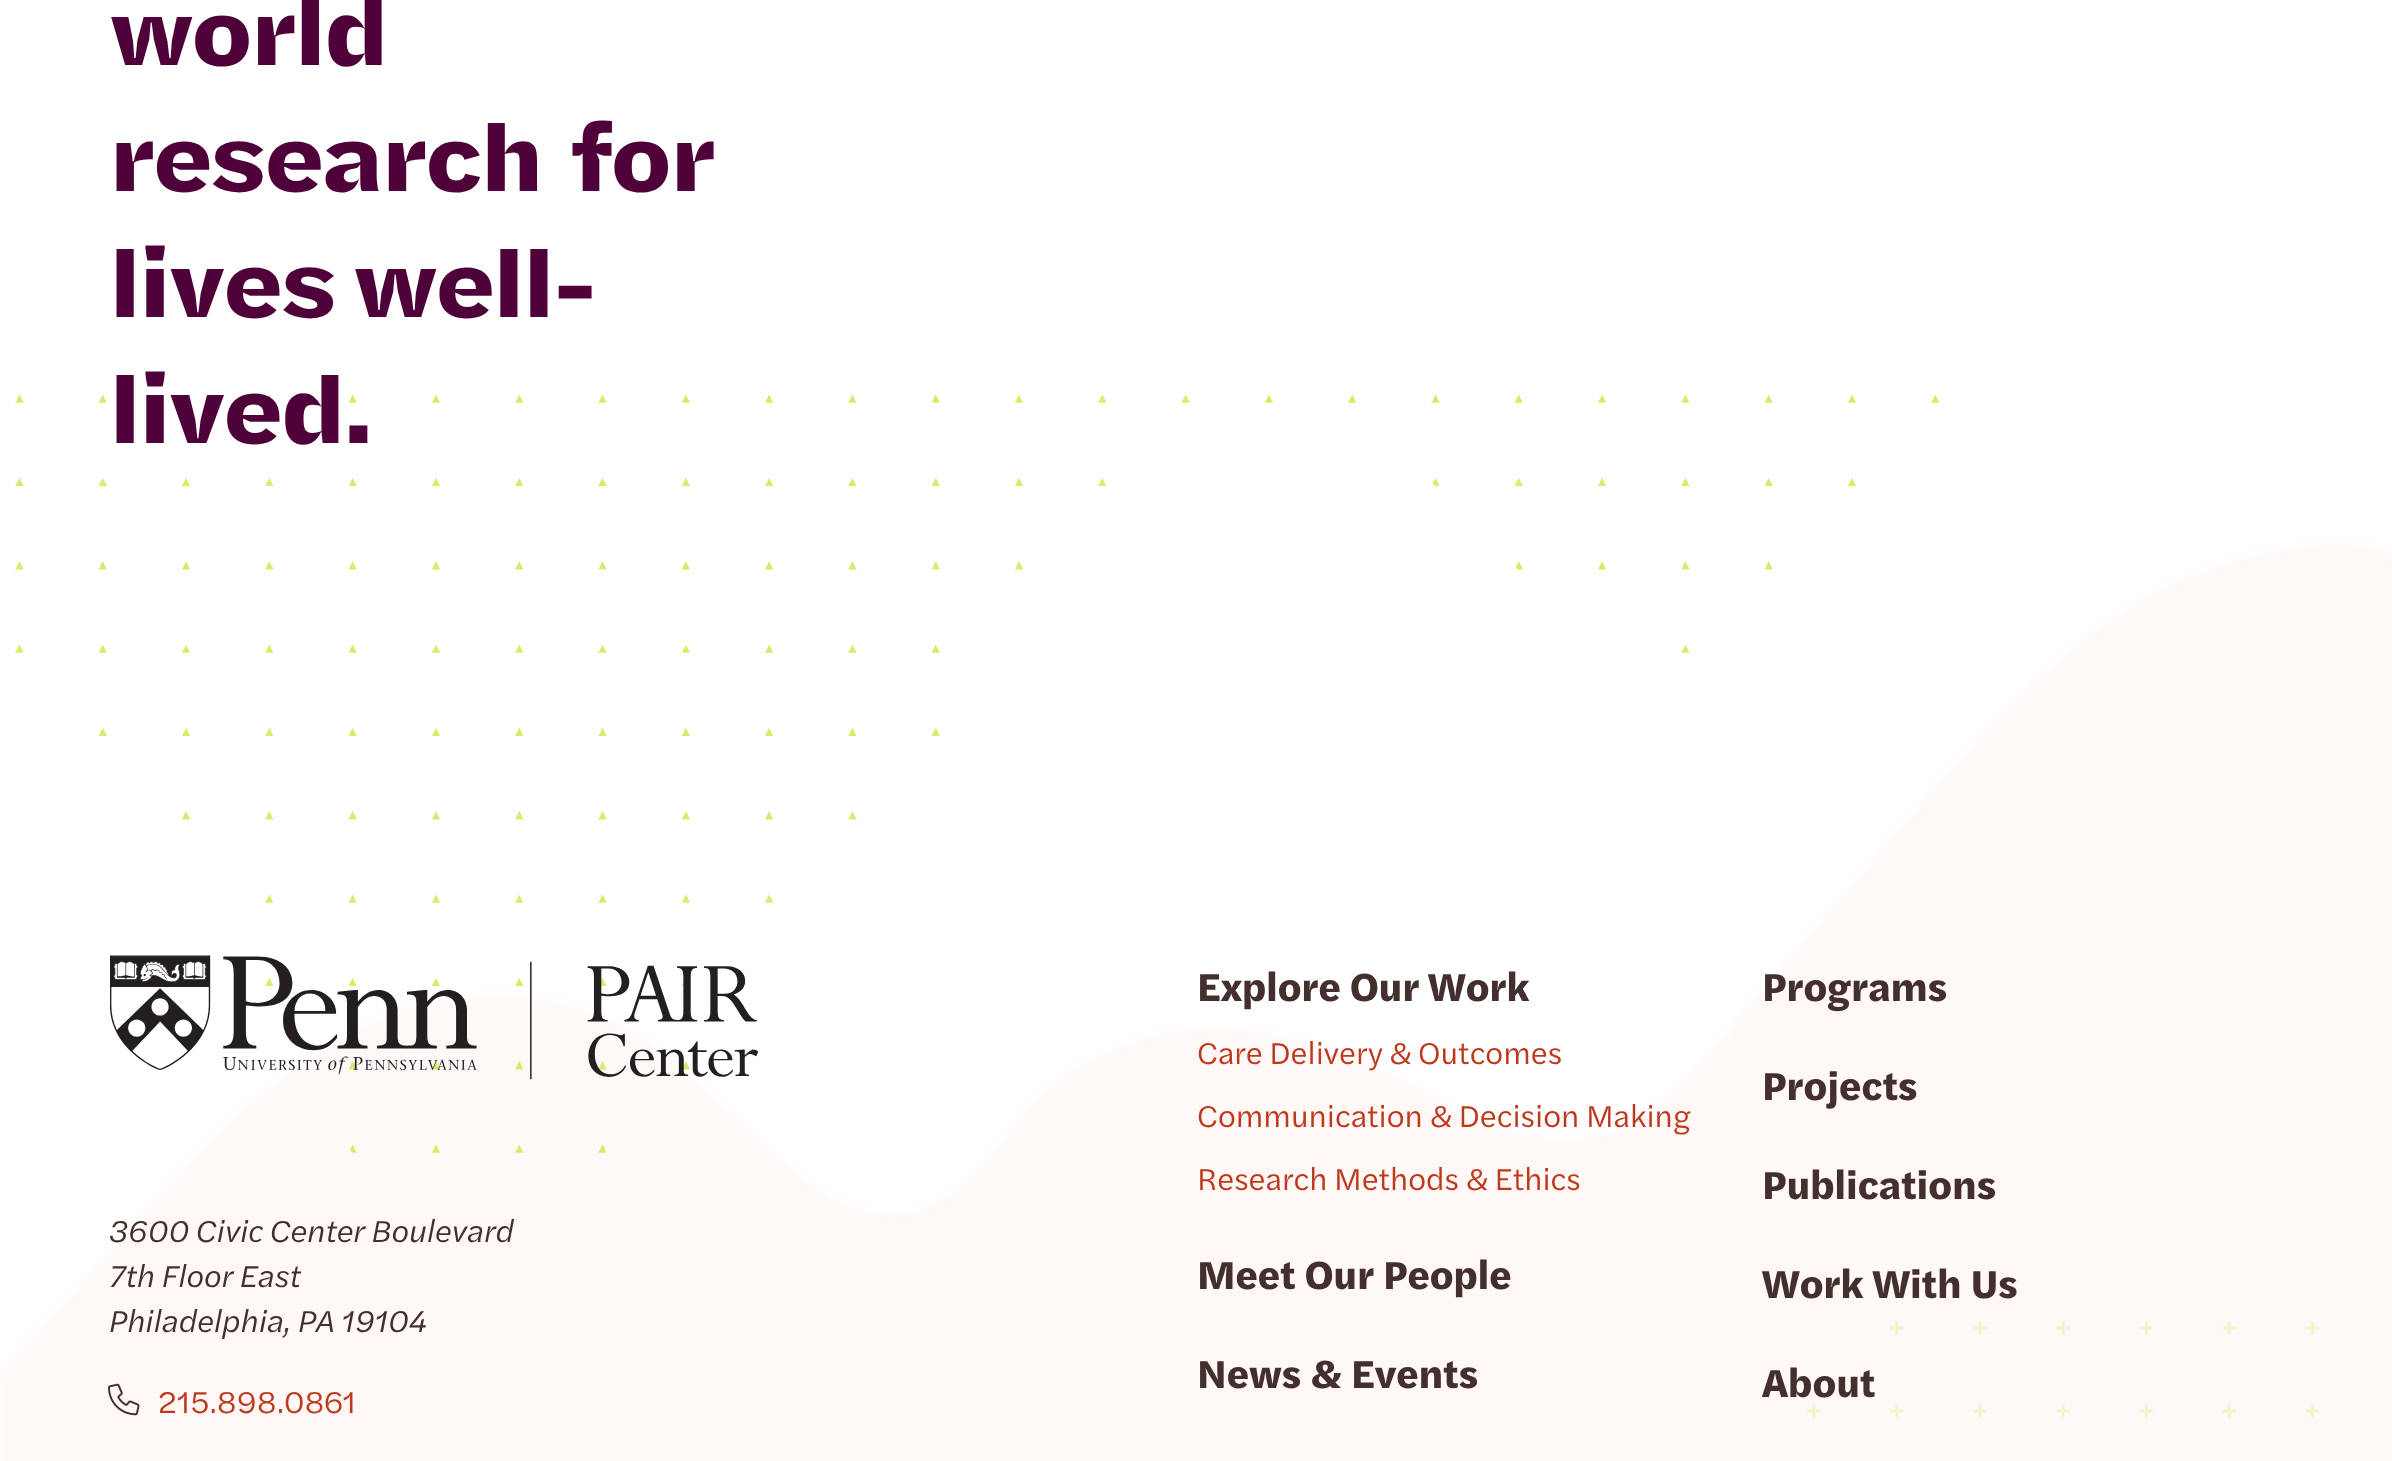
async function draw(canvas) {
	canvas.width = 2392;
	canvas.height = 1461;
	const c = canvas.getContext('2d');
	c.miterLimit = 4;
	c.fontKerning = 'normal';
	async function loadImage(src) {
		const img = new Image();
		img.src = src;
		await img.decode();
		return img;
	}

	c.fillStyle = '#fff';
	c.fillRect(0, 0, 2392, 1461);
	c.drawImage(await loadImage('img1.png'), 0, 394, 2392, 1067);
	c.letterSpacing = '-4.5px';
	c.font = 'bold 90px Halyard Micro';
	c.fillStyle = '#4f0239';
	c.fillText('world', 108, 65);
	c.wordSpacing = '10px';
	c.fillText('research for', 108, 191);
	c.wordSpacing = '0px';
	c.fillText('lives well-', 108, 317);
	c.fillText('lived.', 108, 443);
	c.drawImage(await loadImage('img2.png'), 110, 955, 648, 125);
	c.letterSpacing = '0px';
	c.font = 'italic 31.5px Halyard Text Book';
	c.fillStyle = '#442f2f';
	for (const [text, x, y] of [
		['3600 Civic Center Boulevard', 108, 1242],
		['7th Floor East', 108, 1287],
		['Philadelphia, PA 19104', 108, 1332],
	]) {
		c.fillText(text, x, y);
	}
	c.drawImage(await loadImage('img3.png'), 108, 1383, 32, 33);
	c.font = '31.5px Halyard Text Book';
	c.fillStyle = '#be391c';
	c.fillText('215.898.0861', 158, 1413);
	c.font = 'bold 40.5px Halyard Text';
	c.fillStyle = '#442f2f';
	c.fillText('Explore Our Work', 1197, 1001);
	c.font = '31.5px Halyard Text Book';
	c.fillStyle = '#be391c';
	for (const [text, x, y] of [
		['Care Delivery & Outcomes', 1197, 1064],
		['Communication & Decision Making', 1197, 1127],
		['Research Methods & Ethics', 1197, 1190],
	]) {
		c.fillText(text, x, y);
	}
	c.font = 'bold 40.5px Halyard Text';
	c.fillStyle = '#442f2f';
	for (const [text, x, y] of [
		['Programs', 1762, 1001],
		['Projects', 1762, 1100],
		['Publications', 1762, 1199],
		['Meet Our People', 1197, 1289],
		['Work With Us', 1762, 1298],
		['News & Events', 1197, 1388],
		['About', 1762, 1397],
	]) {
		c.fillText(text, x, y);
	}
}

draw(document.querySelector('canvas'));
